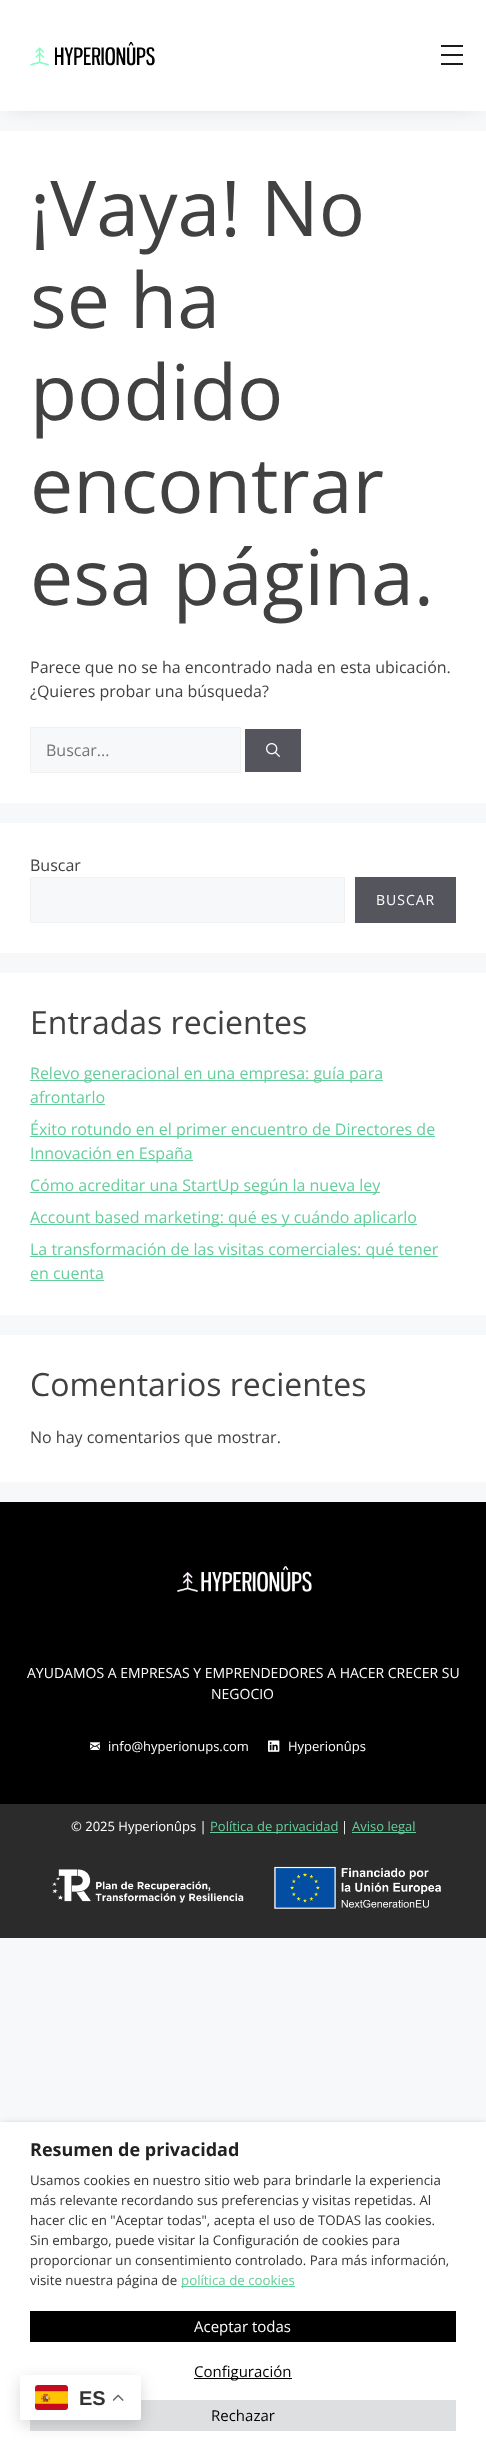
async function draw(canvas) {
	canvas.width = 486;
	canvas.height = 2446;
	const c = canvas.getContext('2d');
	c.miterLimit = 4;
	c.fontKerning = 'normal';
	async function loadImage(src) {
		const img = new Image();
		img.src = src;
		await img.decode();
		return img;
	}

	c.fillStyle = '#f7f8f9';
	c.fillRect(0, 0, 486, 2446);
	c.fillStyle = '#fff';
	c.fillRect(0, 131, 486, 672);
	c.fillStyle = '#00000026';
	c.filter = 'blur(10px)';
	c.beginPath();
	c.rect(10, 15, 466, 91);
	c.fill();
	c.filter = 'none';
	c.fillStyle = '#fff';
	c.fillRect(0, 0, 486, 111);
	c.drawImage(await loadImage('img1.png'), 30, 42, 125, 24);
	for (const [x, y, w, h, color] of [
		[441, 45, 22, 2, '#1b1b1b'],
		[441, 54, 22, 2, '#1b1b1b'],
		[441, 63, 22, 2, '#1b1b1b'],
	]) {
		c.fillStyle = color;
		c.fillRect(x, y, w, h);
	}
	c.font = '77px Open Sans';
	c.fillStyle = '#414141';
	for (const [text, x, y] of [
		['¡Vaya! No', 30, 236],
		['se ha', 30, 328],
		['podido', 30, 420],
		['encontrar', 30, 513],
		['esa página.', 30, 605],
	]) {
		c.fillText(text, x, y);
	}
	c.font = '16px Open Sans';
	c.fillText('Parece que no se ha encontrado nada en esta ubicación.', 30, 673);
	c.fillText('¿Quieres probar una búsqueda?', 30, 697);
	c.fillStyle = '#f7f8f9';
	c.beginPath();
	c.rect(30.5, 727.5, 210, 45);
	c.fill();
	c.strokeStyle = '#f0f0f0';
	c.stroke();
	c.fillStyle = '#757575';
	c.fillText('Buscar...', 46, 756);
	c.fillStyle = '#55555e';
	c.fillRect(245, 729, 56, 43);
	c.drawImage(await loadImage('img2.png'), 266, 743, 14, 14);
	c.fillStyle = '#fff';
	c.fillRect(0, 823, 486, 130);
	c.fillStyle = '#414141';
	c.fillText('Buscar', 30, 871);
	c.fillStyle = '#f7f8f9';
	c.beginPath();
	c.rect(30.5, 877.5, 314, 45);
	c.fill();
	c.stroke();
	c.fillStyle = '#55555e';
	c.fillRect(355, 877, 101, 46);
	c.letterSpacing = '1px';
	c.font = '14px Open Sans';
	c.fillStyle = '#fff';
	c.fillText('BUSCAR', 376, 905);
	c.fillRect(0, 973, 486, 342);
	c.letterSpacing = '0px';
	c.font = '32px Open Sans';
	c.fillStyle = '#414141';
	c.fillText('Entradas recientes', 30, 1034);
	c.fillStyle = '#66ce9c';
	c.fillRect(30, 1080, 353, 1);
	c.font = '16px Open Sans';
	c.fillText('Relevo generacional en una empresa: guía para', 30, 1079);
	c.fillText('afrontarlo', 30, 1103);
	c.fillRect(30, 1104, 75, 1);
	c.fillRect(30, 1136, 405, 1);
	c.fillText('Éxito rotundo en el primer encuentro de Directores de', 30, 1135);
	c.fillRect(30, 1160, 163, 1);
	c.fillText('Innovación en España', 30, 1159);
	c.fillRect(30, 1192, 350, 1);
	c.fillText('Cómo acreditar una StartUp según la nueva ley', 30, 1191);
	c.fillRect(30, 1224, 387, 1);
	c.fillText('Account based marketing: qué es y cuándo aplicarlo', 30, 1223);
	c.fillRect(30, 1256, 408, 1);
	c.fillText('La transformación de las visitas comerciales: qué tener', 30, 1255);
	c.fillText('en cuenta', 30, 1279);
	c.fillRect(30, 1280, 74, 1);
	c.fillStyle = '#fff';
	c.fillRect(0, 1335, 486, 147);
	c.font = '32px Open Sans';
	c.fillStyle = '#414141';
	c.fillText('Comentarios recientes', 30, 1396);
	c.font = '16px Open Sans';
	c.fillText('No hay comentarios que mostrar.', 30, 1443);
	c.fillStyle = '#000';
	c.fillRect(0, 1502, 486, 302);
	c.drawImage(await loadImage('img3.png'), 177, 1566, 135, 26);
	c.font = '14px Open Sans';
	c.fillStyle = '#fff';
	c.fillText('AYUDAMOS A EMPRESAS Y EMPRENDEDORES A HACER CRECER SU', 27, 1678);
	c.fillText('NEGOCIO', 211, 1699);
	c.drawImage(await loadImage('img4.png'), 90, 1742, 10, 8);
	c.font = '13px Open Sans';
	c.fillText('info@hyperionups.com', 108, 1751);
	c.drawImage(await loadImage('img5.png'), 268, 1740, 12, 12);
	c.fillText('Hyperionûps', 288, 1751);
	c.fillStyle = '#2b2b2b';
	c.fillRect(0, 1804, 486, 134);
	c.fillStyle = '#fff';
	c.fillText('© 2025 Hyperionûps |', 71, 1831);
	c.fillStyle = '#66ce9c';
	c.fillRect(210, 1832, 128, 1);
	c.fillText('Política de privacidad', 210, 1831);
	c.fillStyle = '#fff';
	c.fillText('|', 341, 1831);
	c.fillStyle = '#66ce9c';
	c.fillRect(352, 1832, 64, 1);
	c.fillText('Aviso legal', 352, 1831);
	c.drawImage(await loadImage('img6.png'), 52, 1866, 390, 43);
	c.fillStyle = '#00000080';
	c.filter = 'blur(5px)';
	c.beginPath();
	c.rect(0, 2127, 486, 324);
	c.fill();
	c.filter = 'none';
	c.fillStyle = '#fff';
	c.fillRect(0, 2122, 486, 324);
	c.font = 'bold 18px Open Sans';
	c.fillStyle = '#212121';
	c.fillText('Resumen de privacidad', 30, 2156);
	c.font = '13.3px Open Sans';
	c.fillStyle = '#333';
	for (const [text, x, y] of [
		['Usamos cookies en nuestro sitio web para brindarle la experiencia', 30, 2185],
		['más relevante recordando sus preferencias y visitas repetidas. Al', 30, 2205],
		['hacer clic en "Aceptar todas", acepta el uso de TODAS las cookies.', 30, 2225],
		['Sin embargo, puede visitar la Configuración de cookies para', 30, 2245],
		['proporcionar un consentimiento controlado. Para más información,', 30, 2265],
		['visite nuestra página de', 30, 2285],
	]) {
		c.fillText(text, x, y);
	}
	c.fillStyle = '#66ce9c';
	c.fillRect(181, 2286, 114, 1);
	c.fillText('política de cookies', 181, 2285);
	c.fillStyle = '#000';
	c.fillRect(30, 2311, 426, 31);
	c.font = '15px Open Sans';
	c.fillStyle = '#fff';
	c.fillText('Aceptar todas', 194, 2332);
	c.fillStyle = '#000';
	c.fillRect(194, 2378, 98, 1);
	c.fillText('Configuración', 194, 2377);
	c.fillStyle = '#dedfe0';
	c.fillRect(30, 2400, 426, 31);
	c.fillStyle = '#000';
	c.fillText('Rechazar', 211, 2421);
	c.fillStyle = '#00000026';
	c.filter = 'blur(7.5px)';
	c.beginPath();
	c.roundRect(20, 2380, 121, 45, 2);
	c.fill();
	c.filter = 'none';
	c.fillStyle = '#fff';
	c.beginPath();
	c.roundRect(20, 2375, 121, 45, 2);
	c.fill();
	c.drawImage(await loadImage('img7.png'), 35, 2385, 33, 25);
	c.font = 'bold 20px Liberation Sans';
	c.fillStyle = '#333';
	c.fillText('ES', 79, 2405);
	c.drawImage(await loadImage('img8.png'), 113, 2394, 11, 7);
}

draw(document.querySelector('canvas'));
